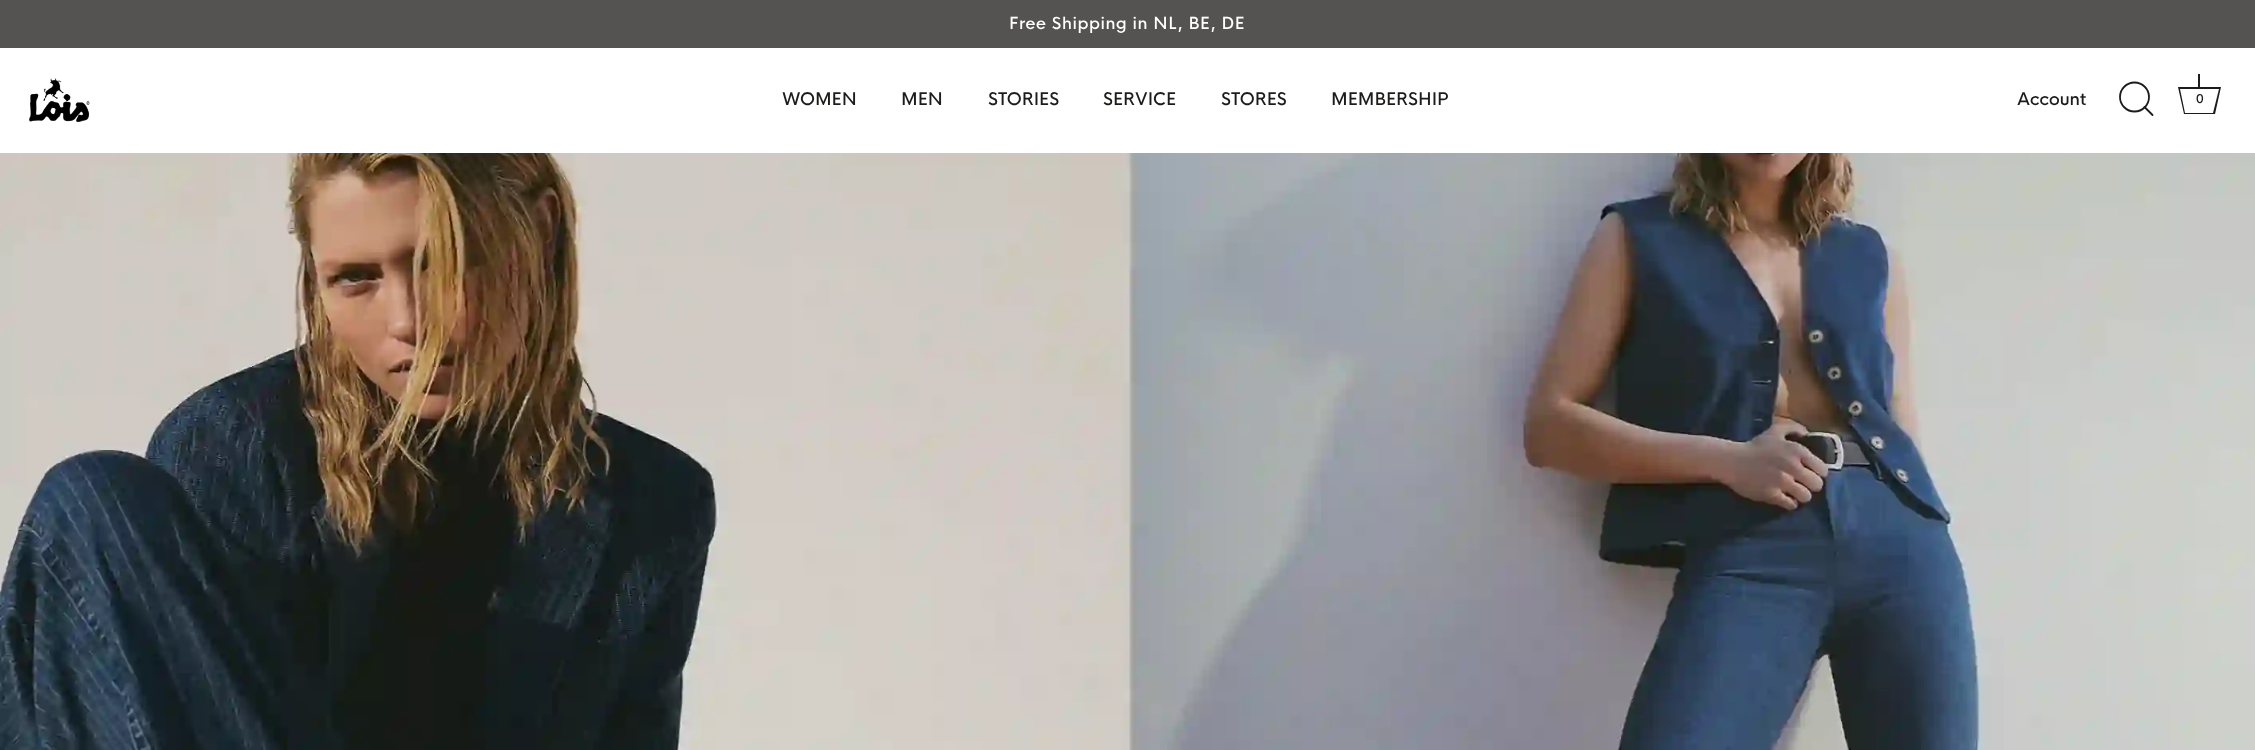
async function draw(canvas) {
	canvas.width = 2255;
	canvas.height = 750;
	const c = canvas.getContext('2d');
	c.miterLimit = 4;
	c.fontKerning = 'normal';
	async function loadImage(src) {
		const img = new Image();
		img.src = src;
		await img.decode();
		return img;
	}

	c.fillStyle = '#fff';
	c.fillRect(0, 0, 2255, 750);
	c.fillStyle = '#555252';
	c.fillRect(0, 0, 2255, 48);
	c.letterSpacing = '0.6px';
	c.font = '500 16.25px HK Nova';
	c.fillStyle = '#fff';
	c.fillText('Free Shipping in NL, BE, DE', 1009, 29);
	c.drawImage(await loadImage('img1.png'), 29, 78, 61, 44);
	c.letterSpacing = '0px';
	c.font = '500 17px HK Nova';
	c.fillStyle = '#1d1c1b';
	for (const [text, x, y] of [
		['WOMEN', 782, 105],
		['MEN', 901, 105],
		['STORIES', 988, 105],
		['SERVICE', 1103, 105],
		['STORES', 1221, 105],
		['MEMBERSHIP', 1331, 105],
		['Account', 2017, 105],
	]) {
		c.fillText(text, x, y);
	}
	c.beginPath();
	c.arc(2134.5, 97, 14.5, 0, 2 * Math.PI);
	c.strokeStyle = '#1d1c1b';
	c.lineWidth = 1.8;
	c.stroke();
	c.beginPath();
	c.moveTo(2152.5, 115);
	c.lineTo(2144.5, 107);
	c.lineCap = 'round';
	c.lineJoin = 'round';
	c.stroke();
	c.fillRect(2198, 74, 2, 13);
	c.beginPath();
	c.moveTo(2219, 89);
	c.lineTo(2213, 113);
	c.lineTo(2185, 113);
	c.lineTo(2180, 89);
	c.lineTo(2219, 89);
	c.moveTo(2221, 87);
	c.lineTo(2178, 87);
	c.lineTo(2184, 114);
	c.lineTo(2215, 114);
	c.closePath();
	c.fill();
	c.font = '500 12px HK Nova';
	c.fillText('0', 2196, 103);
	c.drawImage(await loadImage('img2.png'), 0, 153, 2255, 597);
}

draw(document.querySelector('canvas'));
